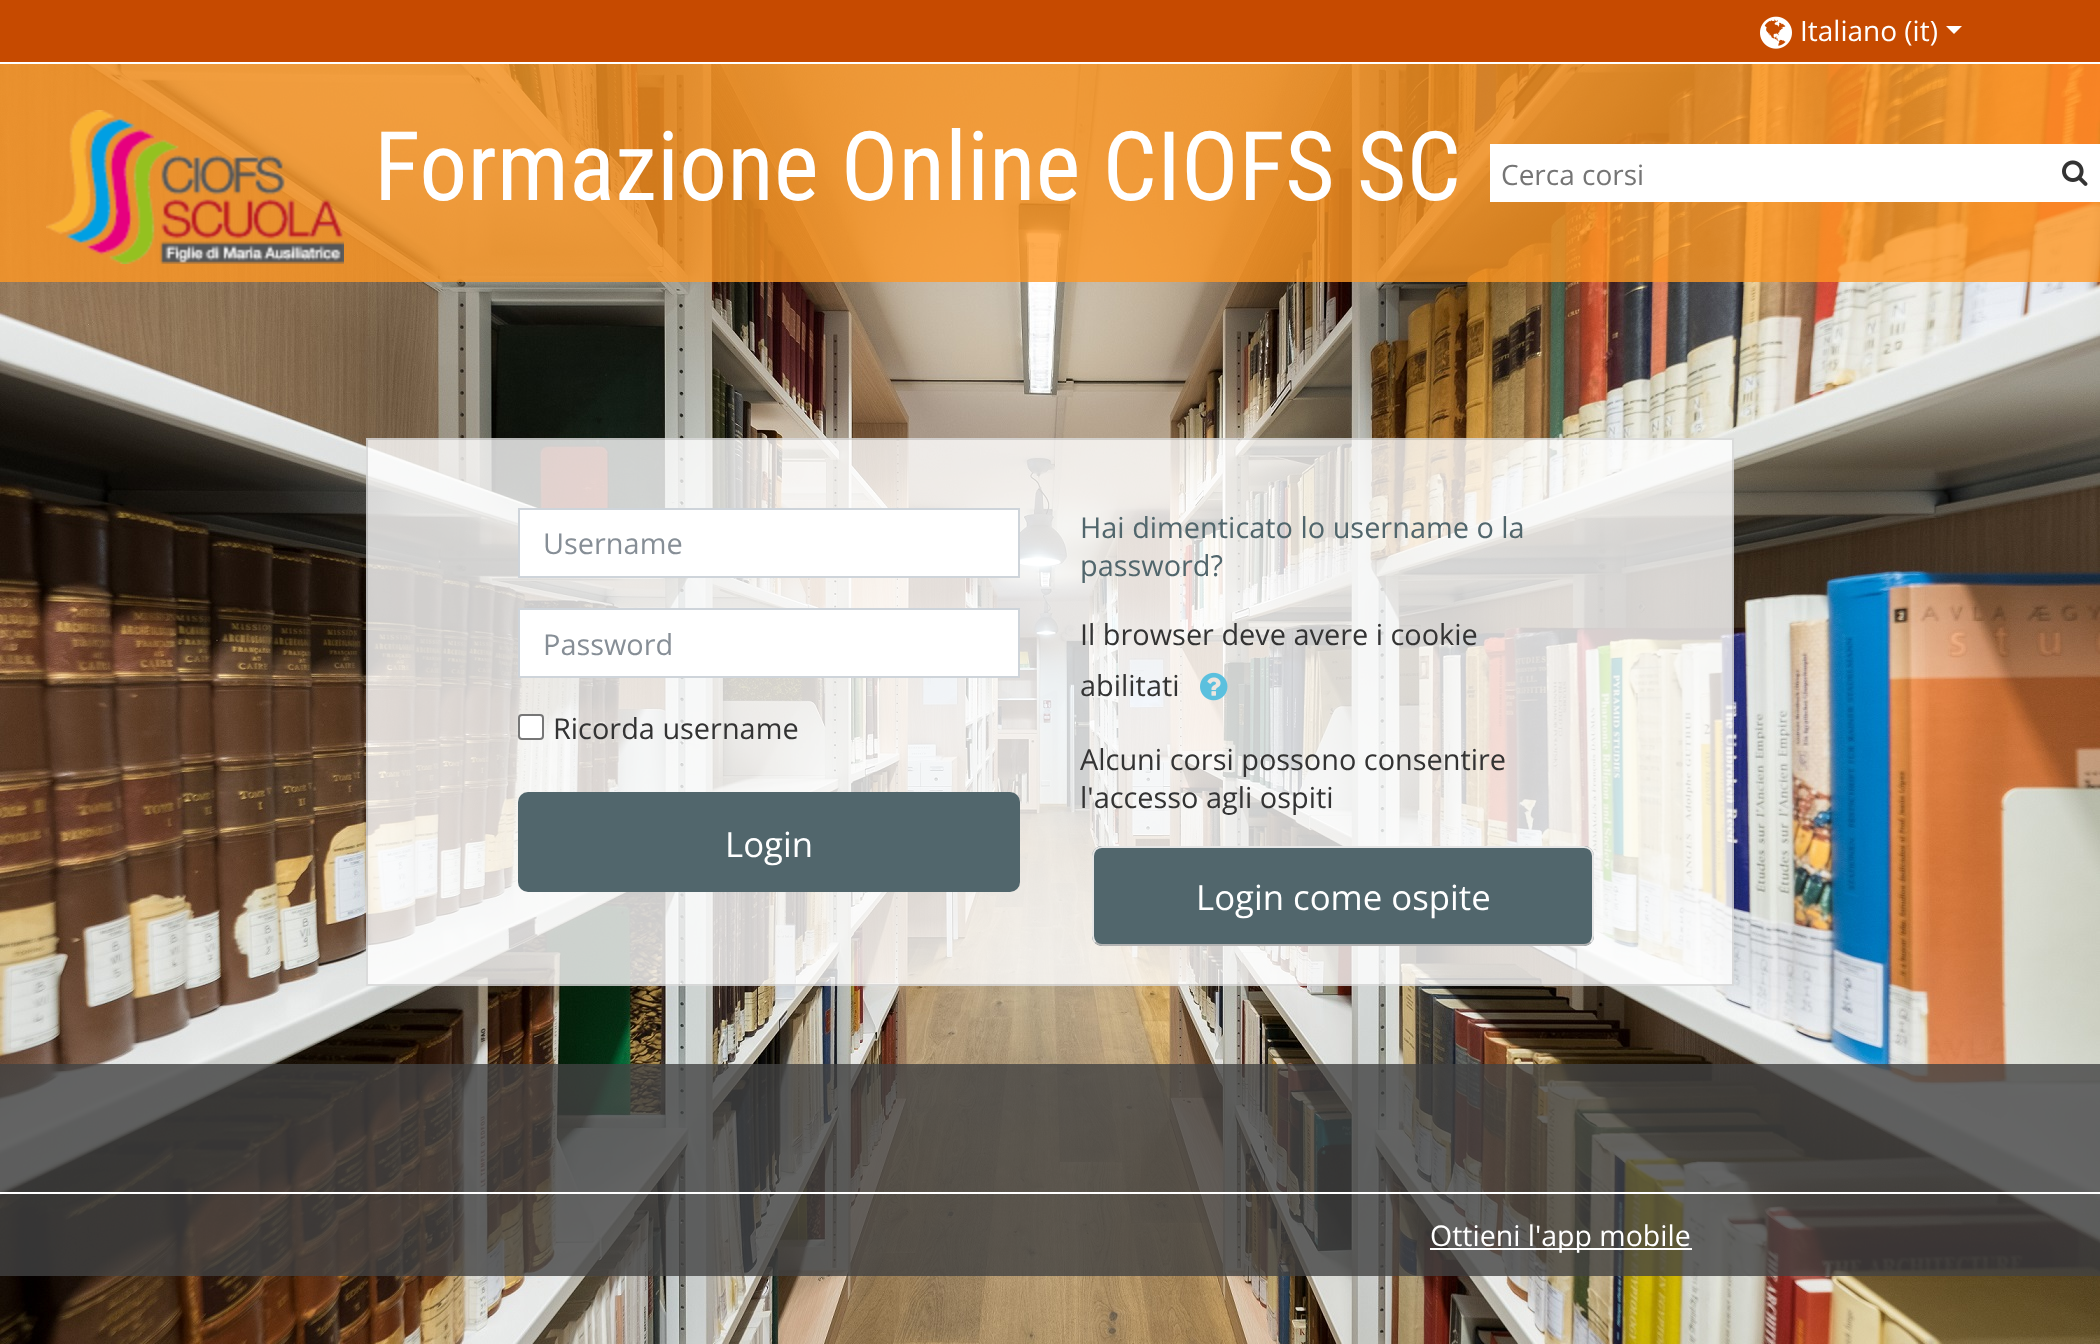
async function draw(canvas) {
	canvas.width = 2100;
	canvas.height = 1344;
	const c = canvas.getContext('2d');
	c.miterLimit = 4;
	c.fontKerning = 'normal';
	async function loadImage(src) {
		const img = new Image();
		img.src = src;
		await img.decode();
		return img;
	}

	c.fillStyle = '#fff';
	c.fillRect(0, 0, 2100, 1344);
	c.drawImage(await loadImage('img1.png'), 0, 64, 2100, 1280);
	c.fillStyle = '#ff9723cc';
	c.fillRect(0, 64, 2100, 218);
	c.fillStyle = '#c64a00';
	c.fillRect(0, 0, 2100, 62);
	c.drawImage(await loadImage('img2.png'), 1760, 16, 32, 33);
	c.font = '28px Open Sans';
	c.fillStyle = '#fff';
	c.fillText('Italiano (it)', 1800, 41);
	c.beginPath();
	c.moveTo(1946, 26);
	c.lineTo(1962, 26);
	c.lineTo(1954, 34);
	c.closePath();
	c.fill();
	c.drawImage(await loadImage('img3.png'), 46, 110, 298, 154);
	c.font = '96px Roboto Condensed';
	c.fillText('Formazione Online CIOFS SC', 374, 200);
	c.fillRect(1490, 144, 610, 58);
	c.font = '28px Open Sans';
	c.fillStyle = '#757575';
	c.fillText('Cerca corsi', 1501, 185);
	c.drawImage(await loadImage('img4.png'), 2062, 160, 26, 26);
	c.fillStyle = '#ffffffcc';
	c.fillRect(366, 438, 1368, 548);
	c.strokeStyle = '#0000001f';
	c.lineWidth = 2;
	c.strokeRect(367, 439, 1366, 546);
	c.fillStyle = '#fff';
	c.beginPath();
	c.rect(519, 509, 500, 68);
	c.fill();
	c.strokeStyle = '#ced4da';
	c.stroke();
	c.font = '28.9px Open Sans';
	c.fillStyle = '#868e96';
	c.fillText('Username', 543, 554);
	c.fillStyle = '#fff';
	c.beginPath();
	c.rect(519, 609, 500, 68);
	c.fill();
	c.stroke();
	c.fillStyle = '#868e96';
	c.fillText('Password', 543, 655);
	c.fillStyle = '#fff';
	c.beginPath();
	c.roundRect(519, 715, 24, 24, 3);
	c.fill();
	c.strokeStyle = '#767676';
	c.stroke();
	c.fillStyle = '#333';
	c.fillText('Ricorda username', 553, 739);
	c.fillStyle = '#51666c';
	c.beginPath();
	c.roundRect(518, 792, 502, 100, 10);
	c.fill();
	c.font = '34.75px Open Sans';
	c.fillStyle = '#fff';
	c.fillText('Login', 725, 857);
	c.font = '28.9px Open Sans';
	c.fillStyle = '#51666c';
	c.fillText('Hai dimenticato lo username o la', 1080, 538);
	c.fillText('password?', 1080, 576);
	c.fillStyle = '#333';
	c.fillText('Il browser deve avere i cookie', 1080, 645);
	c.fillText('abilitati', 1080, 696);
	c.drawImage(await loadImage('img5.png'), 1200, 672, 28, 29);
	c.fillText('Alcuni corsi possono consentire', 1080, 770);
	c.fillText('l\'accesso agli ospiti', 1080, 808);
	c.fillStyle = '#51666c';
	c.beginPath();
	c.roundRect(1092, 846, 502, 100, 10);
	c.fill();
	c.beginPath();
	c.moveTo(1590.5, 942.5);
	c.bezierCurveTo(1588.5, 944, 1586.5, 945, 1584, 945);
	c.lineTo(1102, 945);
	c.bezierCurveTo(1099.5, 945, 1097.5, 944, 1095.5, 942.5);
	c.strokeStyle = '#b3b3b3';
	c.stroke();
	c.beginPath();
	c.moveTo(1095.5, 942.5);
	c.bezierCurveTo(1094, 940.5, 1093, 938.5, 1093, 936);
	c.lineTo(1093, 856);
	c.bezierCurveTo(1093, 853.5, 1094, 851.5, 1095.5, 849.5);
	c.bezierCurveTo(1097.5, 848, 1099.5, 847, 1102, 847);
	c.lineTo(1584, 847);
	c.bezierCurveTo(1586.5, 847, 1588.5, 848, 1590.5, 849.5);
	c.bezierCurveTo(1592, 851.5, 1593, 853.5, 1593, 856);
	c.lineTo(1593, 936);
	c.bezierCurveTo(1593, 938.5, 1592, 940.5, 1590.5, 942.5);
	c.strokeStyle = '#e6e6e6';
	c.stroke();
	c.font = '34.75px Open Sans';
	c.fillStyle = '#fff';
	c.fillText('Login come ospite', 1196, 910);
	for (const [x, y, w, h, color] of [
		[0, 1064, 2100, 212, '#424242cc'],
		[0, 1192, 2100, 2, '#fff'],
		[1430, 1248, 262, 2, '#fff'],
	]) {
		c.fillStyle = color;
		c.fillRect(x, y, w, h);
	}
	c.font = '28.5px Open Sans';
	c.fillText('Ottieni l\'app mobile', 1430, 1246);
}

draw(document.querySelector('canvas'));
